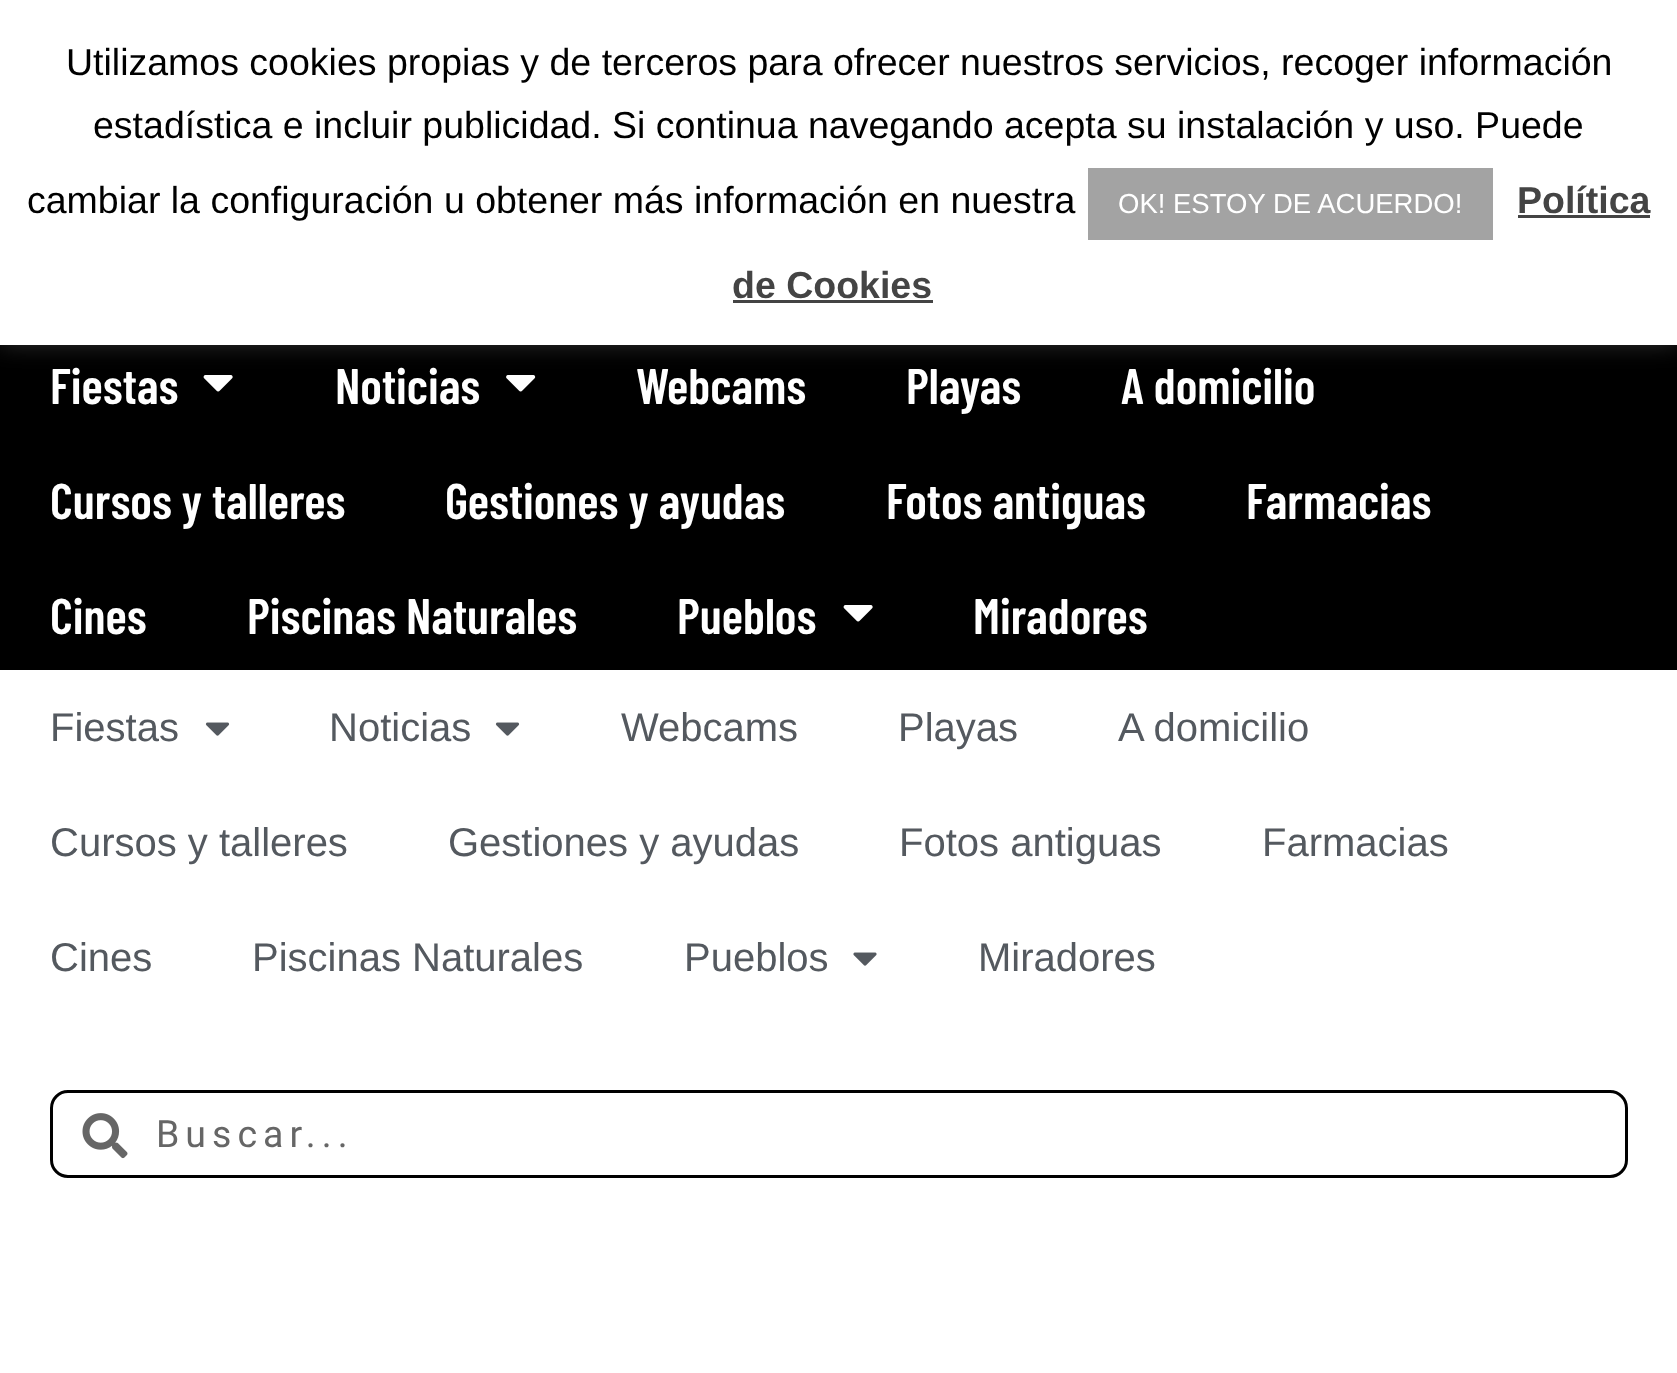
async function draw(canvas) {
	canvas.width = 1677;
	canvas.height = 1373;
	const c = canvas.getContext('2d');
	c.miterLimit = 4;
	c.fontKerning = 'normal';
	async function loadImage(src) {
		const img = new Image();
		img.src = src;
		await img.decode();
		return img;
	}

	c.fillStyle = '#fff';
	c.fillRect(0, 0, 1677, 1373);
	c.fillStyle = '#000';
	c.fillRect(0, 345, 1677, 325);
	c.drawImage(await loadImage('img1.png'), 203, 375, 30, 17);
	c.drawImage(await loadImage('img2.png'), 506, 375, 30, 17);
	c.fillStyle = '#acabab4d';
	c.filter = 'blur(12.5px)';
	c.beginPath();
	c.rect(0, -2, 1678, 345);
	c.fill();
	c.filter = 'none';
	c.fillStyle = '#fff';
	c.fillRect(0, 0, 1677, 345);
	c.font = '37.5px Liberation Sans';
	c.fillStyle = '#000';
	for (const [text, x, y] of [
		['Utilizamos cookies propias y de terceros para ofrecer nuestros servicios, recoger información', 66, 75],
		['estadística e incluir publicidad. Si continua navegando acepta su instalación y uso. Puede', 93, 138],
		['cambiar la configuración u obtener más información en nuestra', 27, 213],
	]) {
		c.fillText(text, x, y);
	}
	c.fillStyle = '#a3a3a3';
	c.fillRect(1088, 168, 405, 72);
	c.font = '27.5px Liberation Sans';
	c.fillStyle = '#fff';
	c.fillText('OK! ESTOY DE ACUERDO!', 1118, 213);
	c.font = 'bold 37.5px Liberation Sans';
	c.fillStyle = '#444';
	c.fillText('Política', 1517, 213);
	c.fillRect(1518, 215, 132, 3);
	c.fillText('de Cookies', 732, 298);
	c.fillRect(733, 300, 200, 3);
	c.font = '600 50px Barlow Condensed';
	c.fillStyle = '#fff';
	for (const [text, x, y] of [
		['Fiestas', 50, 404],
		['Noticias', 335, 404],
		['Webcams', 636, 404],
		['Playas', 906, 404],
		['A domicilio', 1121, 404],
		['Cursos y talleres', 50, 519],
		['Gestiones y ayudas', 445, 519],
		['Fotos antiguas', 886, 519],
		['Farmacias', 1246, 519],
		['Cines', 50, 634],
		['Piscinas Naturales', 247, 634],
		['Pueblos', 677, 634],
	]) {
		c.fillText(text, x, y);
	}
	c.drawImage(await loadImage('img1.png'), 843, 605, 30, 17);
	c.fillText('Miradores', 973, 634);
	c.font = '40px Liberation Sans';
	c.fillStyle = '#54595f';
	c.fillText('Fiestas', 50, 741);
	c.drawImage(await loadImage('img3.png'), 205, 722, 25, 14);
	c.fillText('Noticias', 329, 741);
	c.drawImage(await loadImage('img3.png'), 495, 722, 25, 14);
	for (const [text, x, y] of [
		['Webcams', 621, 741],
		['Playas', 898, 741],
		['A domicilio', 1118, 741],
		['Cursos y talleres', 50, 856],
		['Gestiones y ayudas', 448, 856],
		['Fotos antiguas', 899, 856],
		['Farmacias', 1262, 856],
		['Cines', 50, 971],
		['Piscinas Naturales', 252, 971],
		['Pueblos', 684, 971],
	]) {
		c.fillText(text, x, y);
	}
	c.drawImage(await loadImage('img4.png'), 853, 952, 24, 14);
	c.fillText('Miradores', 978, 971);
	c.beginPath();
	c.roundRect(51.5, 1091.5, 1575, 85, 16.5);
	c.strokeStyle = '#000';
	c.lineWidth = 3;
	c.stroke();
	c.drawImage(await loadImage('img5.png'), 82, 1113, 46, 46);
	c.letterSpacing = '6px';
	c.font = '37.5px Roboto';
	c.fillStyle = '#666';
	c.fillText('Buscar...', 156, 1147);
}

draw(document.querySelector('canvas'));
